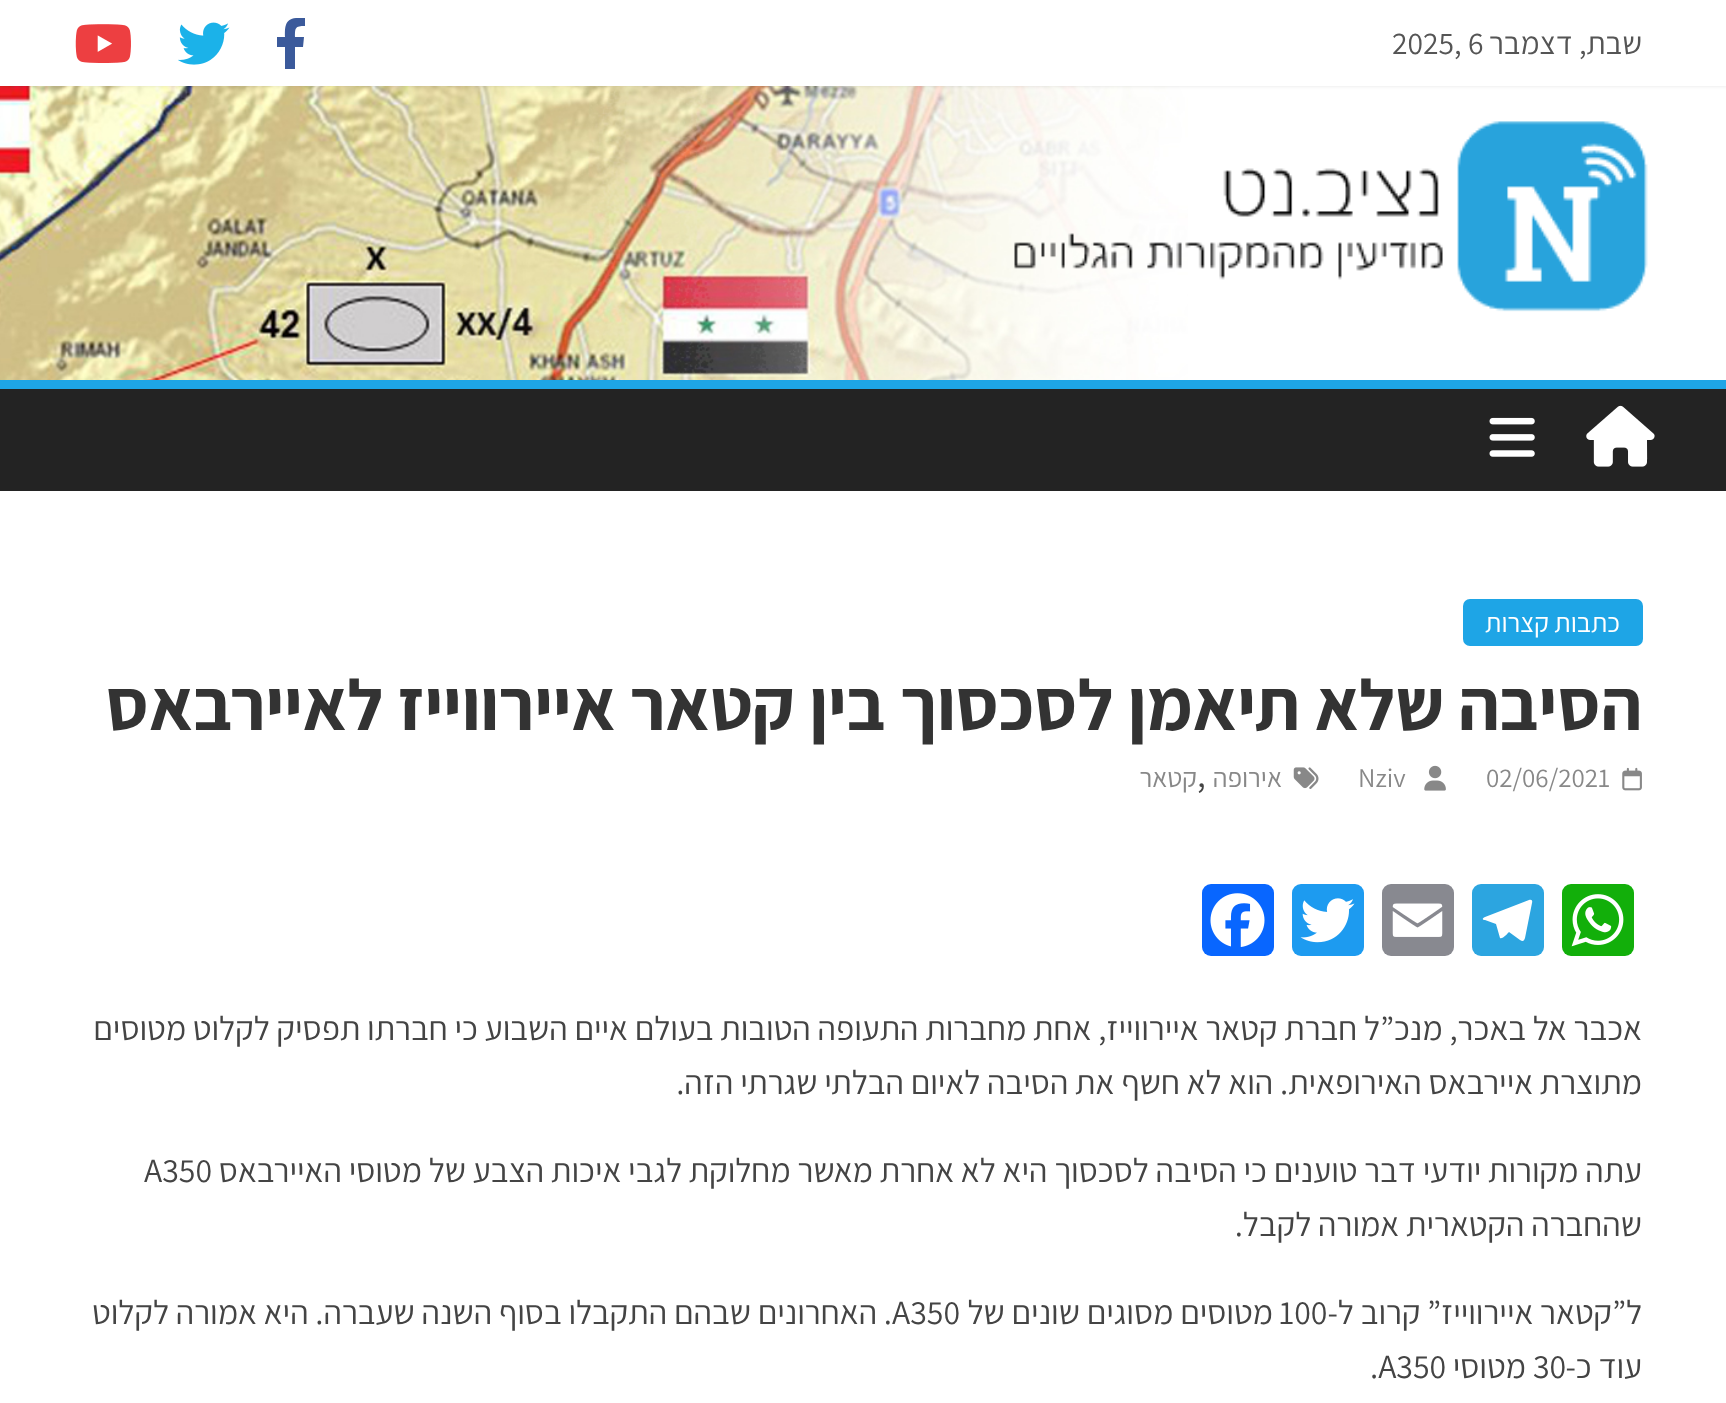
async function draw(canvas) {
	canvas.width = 1726;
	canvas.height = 1403;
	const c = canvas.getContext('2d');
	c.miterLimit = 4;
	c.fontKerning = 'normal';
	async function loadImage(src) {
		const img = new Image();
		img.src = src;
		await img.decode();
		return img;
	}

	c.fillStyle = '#fff';
	c.fillRect(0, 0, 1726, 1403);
	c.drawImage(await loadImage('img1.png'), 0, 86, 1188, 294);
	c.fillStyle = '#0000001a';
	c.filter = 'blur(2px)';
	c.beginPath();
	c.rect(0, 0, 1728, 86);
	c.fill();
	c.filter = 'none';
	c.fillStyle = '#fff';
	c.fillRect(0, 0, 1726, 86);
	c.direction = 'rtl';
	c.font = '31.5px Assistant';
	c.fillStyle = '#555';
	c.fillText('שבת, דצמבר', 1642, 54);
	c.direction = 'ltr';
	c.fillText('2025, 6', 1392, 54);
	c.fillStyle = '#3b5a9b';
	c.beginPath();
	c.moveTo(303, 47);
	c.lineTo(304, 37);
	c.lineTo(295, 37);
	c.bezierCurveTo(295, 28, 295, 26, 305, 26);
	c.lineTo(305, 18);
	c.lineTo(296, 18);
	c.bezierCurveTo(284, 19, 285, 29, 285, 37);
	c.lineTo(277, 37);
	c.lineTo(277, 47);
	c.lineTo(285, 47);
	c.lineTo(285, 69);
	c.lineTo(295, 69);
	c.lineTo(295, 47);
	c.closePath();
	c.fill();
	c.drawImage(await loadImage('img2.png'), 178, 22, 52, 43);
	c.drawImage(await loadImage('img3.png'), 75, 24, 56, 39);
	c.drawImage(await loadImage('img4.png'), 1014, 121, 634, 191);
	c.fillStyle = '#232323';
	c.fillRect(0, 389, 1726, 102);
	c.fillStyle = '#1ea5e6';
	c.fillRect(0, 380, 1726, 9);
	c.drawImage(await loadImage('img5.png'), 1586, 405, 69, 62);
	c.drawImage(await loadImage('img6.png'), 1489, 417, 46, 40);
	c.beginPath();
	c.roundRect(1463, 599, 180, 47, 7);
	c.fill();
	c.direction = 'rtl';
	c.font = '27px Assistant';
	c.fillStyle = '#fff';
	c.fillText('כתבות קצרות', 1620, 632);
	c.font = 'bold 72px Assistant';
	c.fillStyle = '#333';
	c.fillText('הסיבה שלא תיאמן לסכסוך בין קטאר איירווייז לאיירבאס', 1642, 730);
	c.drawImage(await loadImage('img7.png'), 1622, 767, 20, 24);
	c.direction = 'ltr';
	c.font = '27px Assistant';
	c.fillStyle = '#888';
	c.fillText('02/06/2021', 1486, 787);
	c.drawImage(await loadImage('img8.png'), 1424, 765, 22, 26);
	c.fillText('Nziv', 1358, 787);
	c.drawImage(await loadImage('img9.png'), 1293, 767, 26, 22);
	c.direction = 'rtl';
	c.fillText('אירופה', 1282, 787);
	c.fillText('קטאר', 1197, 787);
	c.direction = 'ltr';
	c.font = '36px Assistant';
	c.fillStyle = '#444';
	c.fillText(',', 1197, 787);
	c.fillStyle = '#12af0a';
	c.beginPath();
	c.roundRect(1562, 884, 72, 72, 9);
	c.fill();
	c.drawImage(await loadImage('img10.png'), 1571, 894, 53, 53);
	c.fillStyle = '#2ca5e0';
	c.beginPath();
	c.roundRect(1472, 884, 72, 72, 9);
	c.fill();
	c.fillStyle = '#fff';
	c.beginPath();
	c.moveTo(1529, 900);
	c.lineTo(1485, 917);
	c.bezierCurveTo(1482, 918, 1482, 920, 1485, 920);
	c.lineTo(1496, 924);
	c.lineTo(1500, 938);
	c.bezierCurveTo(1502, 940, 1508, 933, 1509, 932);
	c.lineTo(1520, 940);
	c.bezierCurveTo(1523, 942, 1524, 941, 1525, 938);
	c.lineTo(1532, 903);
	c.bezierCurveTo(1533, 900, 1531, 899, 1529, 900);
	c.closePath();
	c.fill();
	c.fillStyle = '#888990';
	c.beginPath();
	c.roundRect(1382, 884, 72, 72, 9);
	c.fill();
	c.drawImage(await loadImage('img11.png'), 1392, 903, 51, 34);
	c.fillStyle = '#1d9bf0';
	c.beginPath();
	c.roundRect(1292, 884, 72, 72, 9);
	c.fill();
	c.drawImage(await loadImage('img12.png'), 1300, 898, 55, 45);
	c.fillStyle = '#0866ff';
	c.beginPath();
	c.roundRect(1202, 884, 72, 72, 9);
	c.fill();
	c.drawImage(await loadImage('img13.png'), 1210, 893, 55, 54);
	c.direction = 'rtl';
	c.font = '33.75px Assistant';
	c.fillStyle = '#444';
	for (const [text, x, y] of [
		['אכבר אל באכר, מנכ”ל חברת קטאר איירווייז, אחת מחברות התעופה הטובות בעולם איים השבוע כי חברתו תפסיק לקלוט מטוסים', 1642, 1040],
		['מתוצרת איירבאס האירופאית. הוא לא חשף את הסיבה לאיום הבלתי שגרתי הזה.', 1642, 1094],
		['עתה מקורות יודעי דבר טוענים כי הסיבה לסכסוך היא לא אחרת מאשר מחלוקת לגבי איכות הצבע של מטוסי האיירבאס', 1642, 1182],
	]) {
		c.fillText(text, x, y);
	}
	c.direction = 'ltr';
	c.fillText('A350', 144, 1182);
	c.direction = 'rtl';
	c.fillText('שהחברה הקטארית אמורה לקבל.', 1642, 1236);
	c.fillText('ל”קטאר איירווייז” קרוב ל-', 1642, 1324);
	c.direction = 'ltr';
	c.fillText('100', 1279, 1324);
	c.direction = 'rtl';
	c.fillText('מטוסים מסוגים שונים של', 1273, 1324);
	c.direction = 'ltr';
	c.fillText('A350', 892, 1324);
	c.direction = 'rtl';
	c.fillText('. האחרונים שבהם התקבלו בסוף השנה שעברה. היא אמורה לקלוט', 892, 1324);
	c.fillText('עוד כ-', 1642, 1378);
	c.direction = 'ltr';
	c.fillText('30', 1533, 1378);
	c.direction = 'rtl';
	c.fillText('מטוסי', 1526, 1378);
	c.direction = 'ltr';
	c.fillText('.A350', 1370, 1378);
}

draw(document.querySelector('canvas'));
